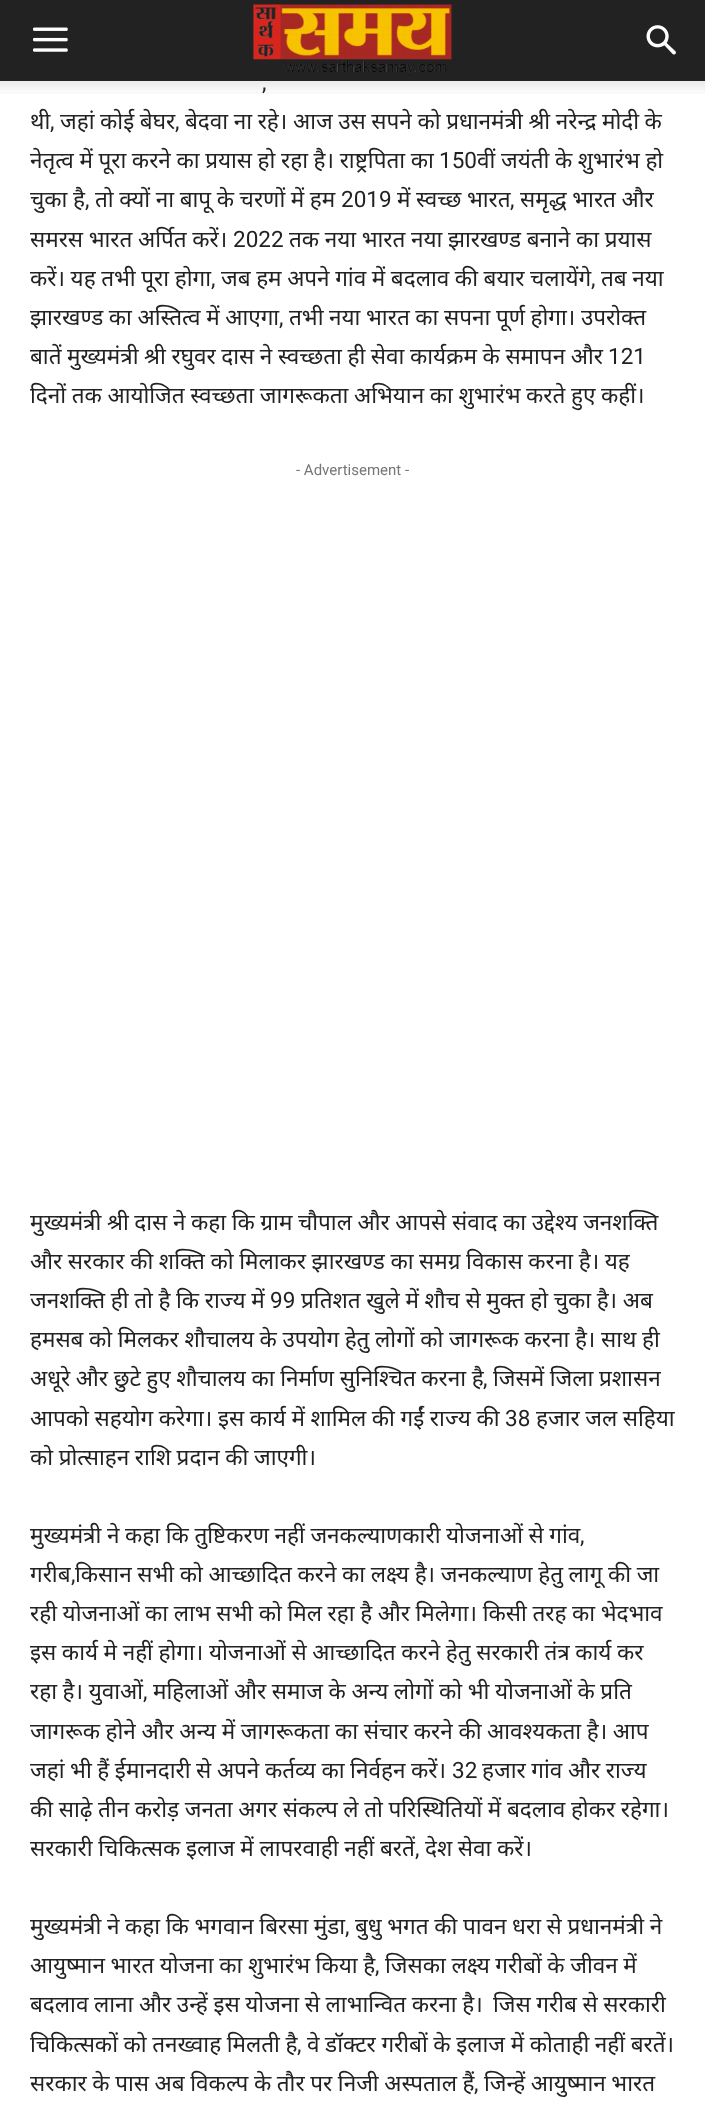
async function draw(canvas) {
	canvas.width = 705;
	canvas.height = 2105;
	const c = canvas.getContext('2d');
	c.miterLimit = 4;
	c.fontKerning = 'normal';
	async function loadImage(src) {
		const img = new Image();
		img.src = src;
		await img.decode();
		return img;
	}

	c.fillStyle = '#fff';
	c.fillRect(0, 0, 705, 2105);
	c.fillStyle = '#222';
	c.fillRect(0, 0, 705, 81);
	c.drawImage(await loadImage('img1.png'), 33, 27, 35, 25);
	c.drawImage(await loadImage('img2.png'), 253, 4, 199, 71);
	c.drawImage(await loadImage('img3.png'), 646, 25, 30, 30);
	c.font = '22.5px Roboto';
	c.fillText(',', 262, 90);
	c.drawImage(await loadImage('img4.png'), 0, 81, 705, 13);
	c.font = '22.5px Noto Sans';
	c.fillText('थी', 30, 129);
	c.font = '22.5px Roboto';
	c.fillText(',', 50, 129);
	c.wordSpacing = '-0.25px';
	c.font = '22.5px Noto Sans';
	c.fillText('जहां कोई बेघर', 60, 129);
	c.wordSpacing = '0px';
	c.font = '22.5px Roboto';
	c.fillText(',', 175, 129);
	c.wordSpacing = '-0.25px';
	c.font = '22.5px Noto Sans';
	c.fillText('बेदवा ना रहे। आज उस सपने को प्रधानमंत्री श्री नरेन्द्र मोदी के', 185, 129);
	c.fillText('नेतृत्व में पूरा करने का प्रयास हो रहा है। राष्ट्रपिता का', 30, 168);
	c.wordSpacing = '0px';
	c.font = '22.5px Roboto';
	c.fillText('150', 439, 168);
	c.wordSpacing = '-0.25px';
	c.font = '22.5px Noto Sans';
	c.fillText('वीं जयंती के शुभारंभ हो', 477, 168);
	c.fillText('चुका है', 30, 207);
	c.wordSpacing = '0px';
	c.font = '22.5px Roboto';
	c.fillText(',', 85, 207);
	c.wordSpacing = '-0.25px';
	c.font = '22.5px Noto Sans';
	c.fillText('तो क्यों ना बापू के चरणों में हम', 95, 207);
	c.wordSpacing = '0px';
	c.font = '22.5px Roboto';
	c.fillText('2019', 341, 207);
	c.wordSpacing = '-0.25px';
	c.font = '22.5px Noto Sans';
	c.fillText('में स्वच्छ भारत', 397, 207);
	c.wordSpacing = '0px';
	c.font = '22.5px Roboto';
	c.fillText(',', 510, 207);
	c.wordSpacing = '-0.25px';
	c.font = '22.5px Noto Sans';
	c.fillText('समृद्ध भारत और', 520, 207);
	c.fillText('समरस भारत अर्पित करें।', 30, 247);
	c.wordSpacing = '0px';
	c.font = '22.5px Roboto';
	c.fillText('2022', 233, 247);
	c.wordSpacing = '-0.25px';
	c.font = '22.5px Noto Sans';
	c.fillText('तक नया भारत नया झारखण्ड बनाने का प्रयास', 289, 247);
	c.fillText('करें। यह तभी पूरा होगा', 30, 286);
	c.wordSpacing = '0px';
	c.font = '22.5px Roboto';
	c.fillText(',', 211, 286);
	c.wordSpacing = '-0.25px';
	c.font = '22.5px Noto Sans';
	c.fillText('जब हम अपने गांव में बदलाव की बयार चलायेंगे', 221, 286);
	c.wordSpacing = '0px';
	c.font = '22.5px Roboto';
	c.fillText(',', 591, 286);
	c.wordSpacing = '-0.25px';
	c.font = '22.5px Noto Sans';
	c.fillText('तब नया', 601, 286);
	c.fillText('झारखण्ड का अस्तित्व में आएगा', 30, 325);
	c.wordSpacing = '0px';
	c.font = '22.5px Roboto';
	c.fillText(',', 279, 325);
	c.wordSpacing = '-0.25px';
	c.font = '22.5px Noto Sans';
	c.fillText('तभी नया भारत का सपना पूर्ण होगा। उपरोक्त', 289, 325);
	c.fillText('बातें मुख्यमंत्री श्री रघुवर दास ने स्वच्छता ही सेवा कार्यक्रम के समापन और', 30, 364);
	c.wordSpacing = '0px';
	c.font = '22.5px Roboto';
	c.fillText('121', 608, 364);
	c.wordSpacing = '-0.25px';
	c.font = '22.5px Noto Sans';
	c.fillText('दिनों तक आयोजित स्वच्छता जागरूकता अभियान का शुभारंभ करते हुए कहीं।', 30, 403);
	c.wordSpacing = '0px';
	c.font = '15px Roboto';
	c.fillStyle = '#767676';
	c.fillText('- Advertisement -', 296, 475);
	c.wordSpacing = '-0.25px';
	c.font = '22.5px Noto Sans';
	c.fillStyle = '#222';
	for (const [text, x, y] of [
		['मुख्यमंत्री श्री दास ने कहा कि ग्राम चौपाल और आपसे संवाद का उद्देश्य जनशक्ति', 30, 1230],
		['और सरकार की शक्ति को मिलाकर झारखण्ड का समग्र विकास करना है। यह', 30, 1269],
		['जनशक्ति ही तो है कि राज्य में', 30, 1308],
	]) {
		c.fillText(text, x, y);
	}
	c.wordSpacing = '0px';
	c.font = '22.5px Roboto';
	c.fillText('99', 270, 1308);
	c.wordSpacing = '-0.25px';
	c.font = '22.5px Noto Sans';
	for (const [text, x, y] of [
		['प्रतिशत खुले में शौच से मुक्त हो चुका है। अब', 301, 1308],
		['हमसब को मिलकर शौचालय के उपयोग हेतु लोगों को जागरूक करना है। साथ ही', 30, 1347],
		['अधूरे और छुटे हुए शौचालय का निर्माण सुनिश्चित करना है', 30, 1386],
	]) {
		c.fillText(text, x, y);
	}
	c.wordSpacing = '0px';
	c.font = '22.5px Roboto';
	c.fillText(',', 483, 1386);
	c.wordSpacing = '-0.25px';
	c.font = '22.5px Noto Sans';
	c.fillText('जिसमें जिला प्रशासन', 493, 1386);
	c.fillText('आपको सहयोग करेगा। इस कार्य में शामिल की गईं राज्य की', 30, 1426);
	c.wordSpacing = '0px';
	c.font = '22.5px Roboto';
	c.fillText('38', 505, 1426);
	c.wordSpacing = '-0.25px';
	c.font = '22.5px Noto Sans';
	for (const [text, x, y] of [
		['हजार जल सहिया', 536, 1426],
		['को प्रोत्साहन राशि प्रदान की जाएगी।', 30, 1465],
		['मुख्यमंत्री ने कहा कि तुष्टिकरण नहीं जनकल्याणकारी योजनाओं से गांव', 30, 1543],
	]) {
		c.fillText(text, x, y);
	}
	c.wordSpacing = '0px';
	c.font = '22.5px Roboto';
	c.fillText(',', 580, 1543);
	c.font = '22.5px Noto Sans';
	c.fillText('गरीब', 30, 1582);
	c.font = '22.5px Roboto';
	c.fillText(',', 71, 1582);
	c.wordSpacing = '-0.25px';
	c.font = '22.5px Noto Sans';
	for (const [text, x, y] of [
		['किसान सभी को आच्छादित करने का लक्ष्य है। जनकल्याण हेतु लागू की जा', 75, 1582],
		['रही योजनाओं का लाभ सभी को मिल रहा है और मिलेगा। किसी तरह का भेदभाव', 30, 1621],
		['इस कार्य मे नहीं होगा। योजनाओं से आच्छादित करने हेतु सरकारी तंत्र कार्य कर', 30, 1660],
		['रहा है। युवाओं', 30, 1699],
	]) {
		c.fillText(text, x, y);
	}
	c.wordSpacing = '0px';
	c.font = '22.5px Roboto';
	c.fillText(',', 143, 1699);
	c.wordSpacing = '-0.25px';
	c.font = '22.5px Noto Sans';
	for (const [text, x, y] of [
		['महिलाओं और समाज के अन्य लोगों को भी योजनाओं के प्रति', 153, 1699],
		['जागरूक होने और अन्य में जागरूकता का संचार करने की आवश्यकता है। आप', 30, 1739],
		['जहां भी हैं ईमानदारी से अपने कर्तव्य का निर्वहन करें।', 30, 1778],
	]) {
		c.fillText(text, x, y);
	}
	c.wordSpacing = '0px';
	c.font = '22.5px Roboto';
	c.fillText('32', 452, 1778);
	c.wordSpacing = '-0.25px';
	c.font = '22.5px Noto Sans';
	for (const [text, x, y] of [
		['हजार गांव और राज्य', 482, 1778],
		['की साढ़े तीन करोड़ जनता अगर संकल्प ले तो परिस्थितियों में बदलाव होकर रहेगा।', 30, 1817],
		['सरकारी चिकित्सक इलाज में लापरवाही नहीं बरतें', 30, 1856],
	]) {
		c.fillText(text, x, y);
	}
	c.wordSpacing = '0px';
	c.font = '22.5px Roboto';
	c.fillText(',', 415, 1856);
	c.wordSpacing = '-0.25px';
	c.font = '22.5px Noto Sans';
	c.fillText('देश सेवा करें।', 425, 1856);
	c.fillText('मुख्यमंत्री ने कहा कि भगवान बिरसा मुंडा', 30, 1934);
	c.wordSpacing = '0px';
	c.font = '22.5px Roboto';
	c.fillText(',', 345, 1934);
	c.wordSpacing = '-0.25px';
	c.font = '22.5px Noto Sans';
	c.fillText('बुधु भगत की पावन धरा से प्रधानमंत्री ने', 355, 1934);
	c.fillText('आयुष्मान भारत योजना का शुभारंभ किया है', 30, 1973);
	c.wordSpacing = '0px';
	c.font = '22.5px Roboto';
	c.fillText(',', 375, 1973);
	c.wordSpacing = '-0.25px';
	c.font = '22.5px Noto Sans';
	for (const [text, x, y] of [
		['जिसका लक्ष्य गरीबों के जीवन में', 385, 1973],
		['बदलाव लाना और उन्हें इस योजना से लाभान्वित करना है।', 30, 2012],
		['जिस गरीब से सरकारी', 493, 2012],
		['चिकित्सकों को तनख्वाह मिलती है', 30, 2052],
	]) {
		c.fillText(text, x, y);
	}
	c.wordSpacing = '0px';
	c.font = '22.5px Roboto';
	c.fillText(',', 297, 2052);
	c.wordSpacing = '-0.25px';
	c.font = '22.5px Noto Sans';
	c.fillText('वे डॉक्टर गरीबों के इलाज में कोताही नहीं बरतें।', 307, 2052);
	c.fillText('सरकार के पास अब विकल्प के तौर पर निजी अस्पताल हैं', 30, 2091);
	c.wordSpacing = '0px';
	c.font = '22.5px Roboto';
	c.fillText(',', 474, 2091);
	c.wordSpacing = '-0.25px';
	c.font = '22.5px Noto Sans';
	c.fillText('जिन्हें आयुष्मान भारत', 484, 2091);
}

draw(document.querySelector('canvas'));
